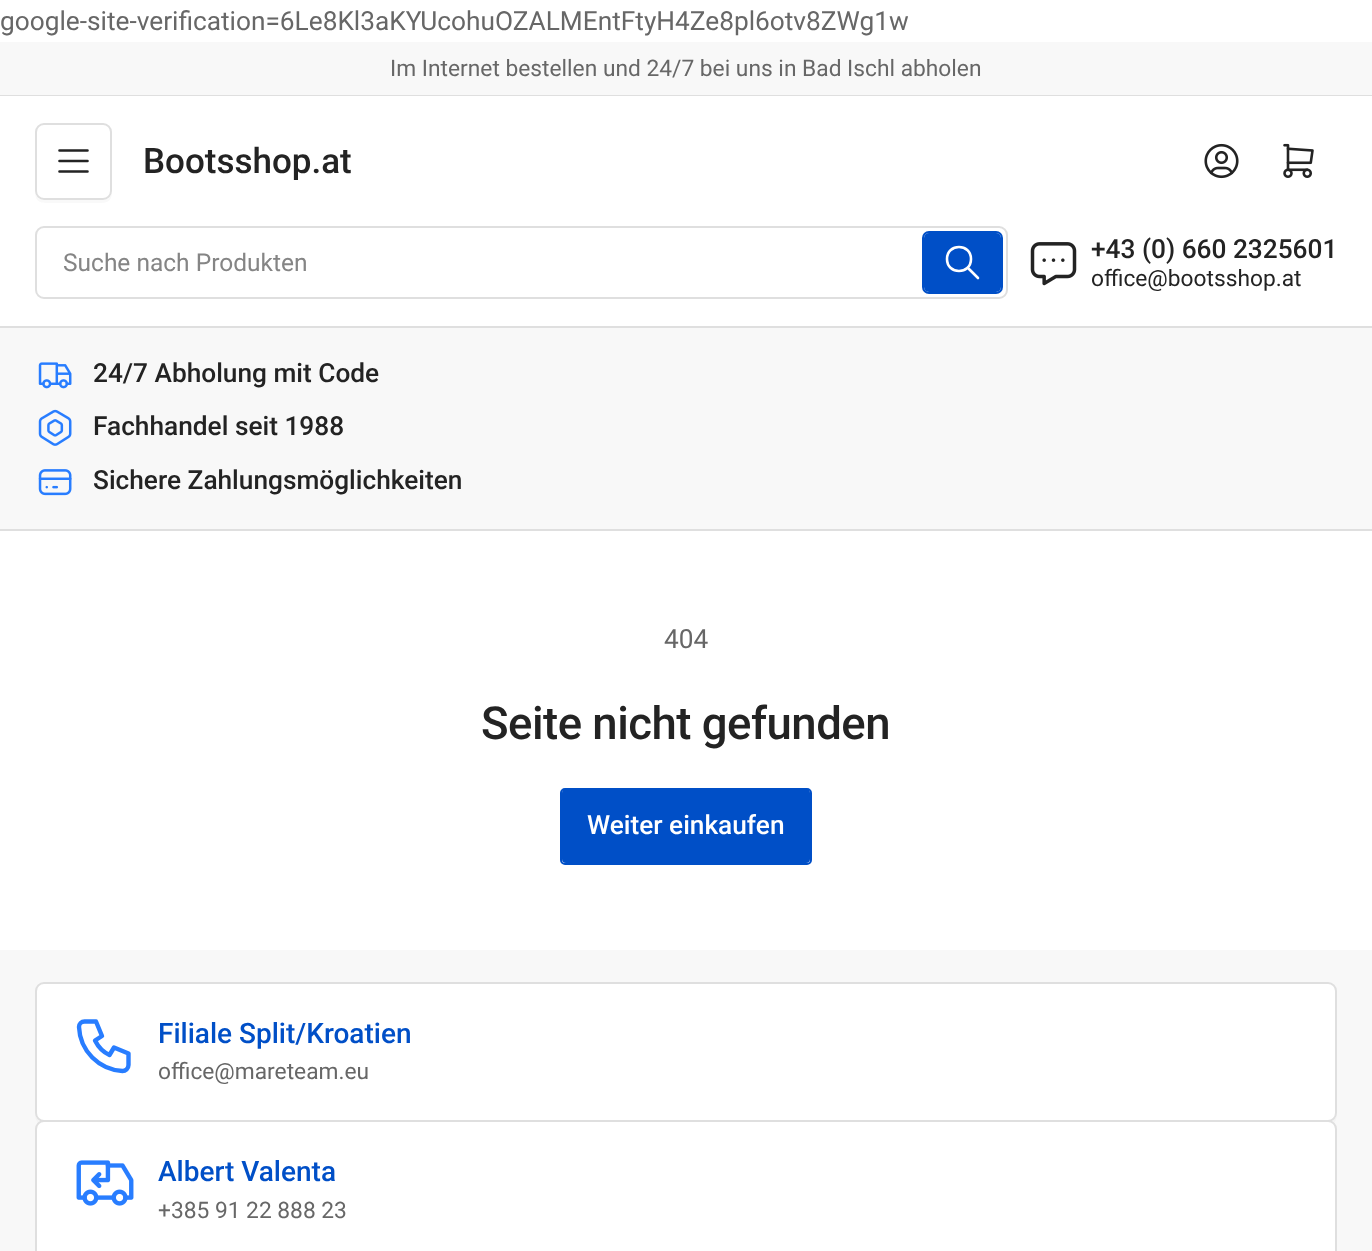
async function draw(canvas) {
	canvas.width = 1372;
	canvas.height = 1251;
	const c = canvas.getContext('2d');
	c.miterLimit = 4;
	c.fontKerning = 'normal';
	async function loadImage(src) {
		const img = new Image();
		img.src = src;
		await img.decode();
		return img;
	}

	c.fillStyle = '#fff';
	c.fillRect(0, 0, 1372, 1251);
	c.font = '26.25px Roboto';
	c.fillStyle = '#676767';
	c.fillText('google-site-verification=6Le8Kl3aKYUcohuOZALMEntFtyH4Ze8pl6otv8ZWg1w', 0, 30);
	c.fillStyle = '#f8f8f8';
	c.fillRect(0, 42, 1372, 53);
	c.fillStyle = '#dfdfdf';
	c.fillRect(0, 95, 1372, 1);
	c.font = '22.75px Roboto';
	c.fillStyle = '#676767';
	c.fillText('Im Internet bestellen und 24/7 bei uns in Bad Ischl abholen', 390, 76);
	c.fillStyle = '#dfdfdf';
	c.fillRect(0, 326, 1372, 2);
	c.fillStyle = '#f9f9f9';
	c.beginPath();
	c.moveTo(35, 191);
	c.bezierCurveTo(35, 204, 42, 203, 54, 203);
	c.lineTo(93, 203);
	c.bezierCurveTo(105, 203, 112, 204, 112, 191);
	c.bezierCurveTo(112, 196, 108, 200, 103, 200);
	c.lineTo(44, 200);
	c.bezierCurveTo(39, 200, 35, 196, 35, 191);
	c.closePath();
	c.fill();
	c.beginPath();
	c.roundRect(36, 124, 75, 75, 8);
	c.strokeStyle = '#dfdfdf';
	c.lineWidth = 2;
	c.stroke();
	c.beginPath();
	c.moveTo(59.5, 150.5);
	c.lineTo(87.5, 150.5);
	c.moveTo(59.5, 161);
	c.lineTo(87.5, 161);
	c.moveTo(59.5, 171.5);
	c.lineTo(87.5, 171.5);
	c.strokeStyle = '#232323';
	c.lineWidth = 2.6;
	c.lineCap = 'round';
	c.lineJoin = 'round';
	c.stroke();
	c.font = '500 35px Roboto';
	c.fillStyle = '#232323';
	c.fillText('Bootsshop.at', 143, 173);
	c.drawImage(await loadImage('img1.png'), 1204, 143, 35, 36);
	c.drawImage(await loadImage('img2.png'), 1283, 143, 31, 35);
	c.beginPath();
	c.roundRect(36, 227, 971, 71, 8);
	c.strokeStyle = '#dfdfdf';
	c.lineWidth = 2;
	c.lineJoin = 'miter';
	c.stroke();
	c.font = '24.5px Roboto';
	c.fillStyle = '#858585';
	c.fillText('Suche nach Produkten', 63, 271);
	c.beginPath();
	c.roundRect(923, 232, 79, 61, 6);
	c.strokeStyle = '#004fc7';
	c.stroke();
	c.fillStyle = '#004fc7';
	c.beginPath();
	c.roundRect(924, 233, 77, 59, 5);
	c.fill();
	c.beginPath();
	c.moveTo(947, 259);
	c.bezierCurveTo(947, 275, 971, 275, 971, 259);
	c.bezierCurveTo(971, 243, 947, 243, 947, 259);
	c.moveTo(978, 278);
	c.lineTo(968, 268);
	c.strokeStyle = '#fff';
	c.lineWidth = 2.6;
	c.lineJoin = 'round';
	c.stroke();
	c.drawImage(await loadImage('img3.png'), 1030, 242, 47, 44);
	c.font = '500 26.25px Roboto';
	c.fillStyle = '#232323';
	c.fillText('+43 (0) 660 2325601', 1091, 258);
	c.font = '22.75px Roboto';
	c.fillText('office@bootsshop.at', 1091, 286);
	c.fillStyle = '#f8f8f8';
	c.fillRect(0, 328, 1372, 201);
	c.drawImage(await loadImage('img4.png'), 38, 362, 34, 27);
	c.font = '500 26.25px Roboto';
	c.fillStyle = '#232323';
	c.fillText('24/7 Abholung mit Code', 93, 382);
	c.drawImage(await loadImage('img5.png'), 38, 409, 34, 37);
	c.fillText('Fachhandel seit 1988', 93, 435);
	c.drawImage(await loadImage('img6.png'), 38, 469, 34, 27);
	c.fillText('Sichere Zahlungsmöglichkeiten', 93, 489);
	c.fillStyle = '#dfdfdf';
	c.fillRect(0, 529, 1372, 2);
	c.font = '26.25px Roboto';
	c.fillStyle = '#676767';
	c.fillText('404', 664, 648);
	c.letterSpacing = '-0.5px';
	c.font = '500 45.5px Roboto';
	c.fillStyle = '#232323';
	c.fillText('Seite nicht gefunden', 481, 739);
	c.beginPath();
	c.roundRect(561, 789, 250, 75, 4);
	c.strokeStyle = '#004fc7';
	c.lineWidth = 2;
	c.lineJoin = 'miter';
	c.stroke();
	c.fillStyle = '#004fc7';
	c.beginPath();
	c.roundRect(562, 789, 248, 74, 4);
	c.fill();
	c.letterSpacing = '0px';
	c.font = '500 26.25px Roboto';
	c.fillStyle = '#fff';
	c.fillText('Weiter einkaufen', 587, 834);
	c.fillStyle = '#f8f8f8';
	c.fillRect(0, 950, 1372, 301);
	c.fillStyle = '#f3f3f3';
	c.beginPath();
	c.moveTo(35, 1113);
	c.bezierCurveTo(35, 1119, 37, 1125, 44, 1125);
	c.lineTo(1328, 1125);
	c.bezierCurveTo(1335, 1125, 1337, 1119, 1337, 1113);
	c.bezierCurveTo(1337, 1118, 1333, 1122, 1328, 1122);
	c.lineTo(44, 1122);
	c.bezierCurveTo(39, 1122, 35, 1118, 35, 1113);
	c.closePath();
	c.fill();
	c.fillStyle = '#fff';
	c.beginPath();
	c.roundRect(36, 983, 1300, 138, 8);
	c.fill();
	c.strokeStyle = '#dfdfdf';
	c.stroke();
	c.beginPath();
	c.moveTo(84.5, 1021.5);
	c.lineTo(96, 1021.5);
	c.lineTo(102, 1036);
	c.lineTo(95, 1040.5);
	c.bezierCurveTo(98, 1046.5, 103, 1052, 109.5, 1055);
	c.lineTo(114, 1047.5);
	c.lineTo(128.5, 1053.5);
	c.lineTo(128.5, 1065);
	c.bezierCurveTo(128.5, 1068.5, 125.5, 1071, 122.5, 1071);
	c.bezierCurveTo(99, 1069.5, 80, 1051, 79, 1027);
	c.bezierCurveTo(79, 1024, 81.5, 1021.5, 84.5, 1021.5);
	c.strokeStyle = '#287dff';
	c.lineWidth = 4.4;
	c.lineJoin = 'round';
	c.stroke();
	c.font = '500 28px Roboto';
	c.fillStyle = '#004fc7';
	c.fillText('Filiale Split/Kroatien', 158, 1043);
	c.font = '22.75px Roboto';
	c.fillStyle = '#676767';
	c.fillText('office@mareteam.eu', 158, 1079);
	c.fillStyle = '#fff';
	c.beginPath();
	c.roundRect(36, 1121, 1300, 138, 8);
	c.fill();
	c.strokeStyle = '#dfdfdf';
	c.lineWidth = 2;
	c.lineJoin = 'miter';
	c.stroke();
	c.drawImage(await loadImage('img7.png'), 76, 1160, 58, 46);
	c.font = '500 28px Roboto';
	c.fillStyle = '#004fc7';
	c.fillText('Albert Valenta', 158, 1181);
	c.font = '22.75px Roboto';
	c.fillStyle = '#676767';
	c.fillText('+385 91 22 888 23', 158, 1218);
}

draw(document.querySelector('canvas'));
